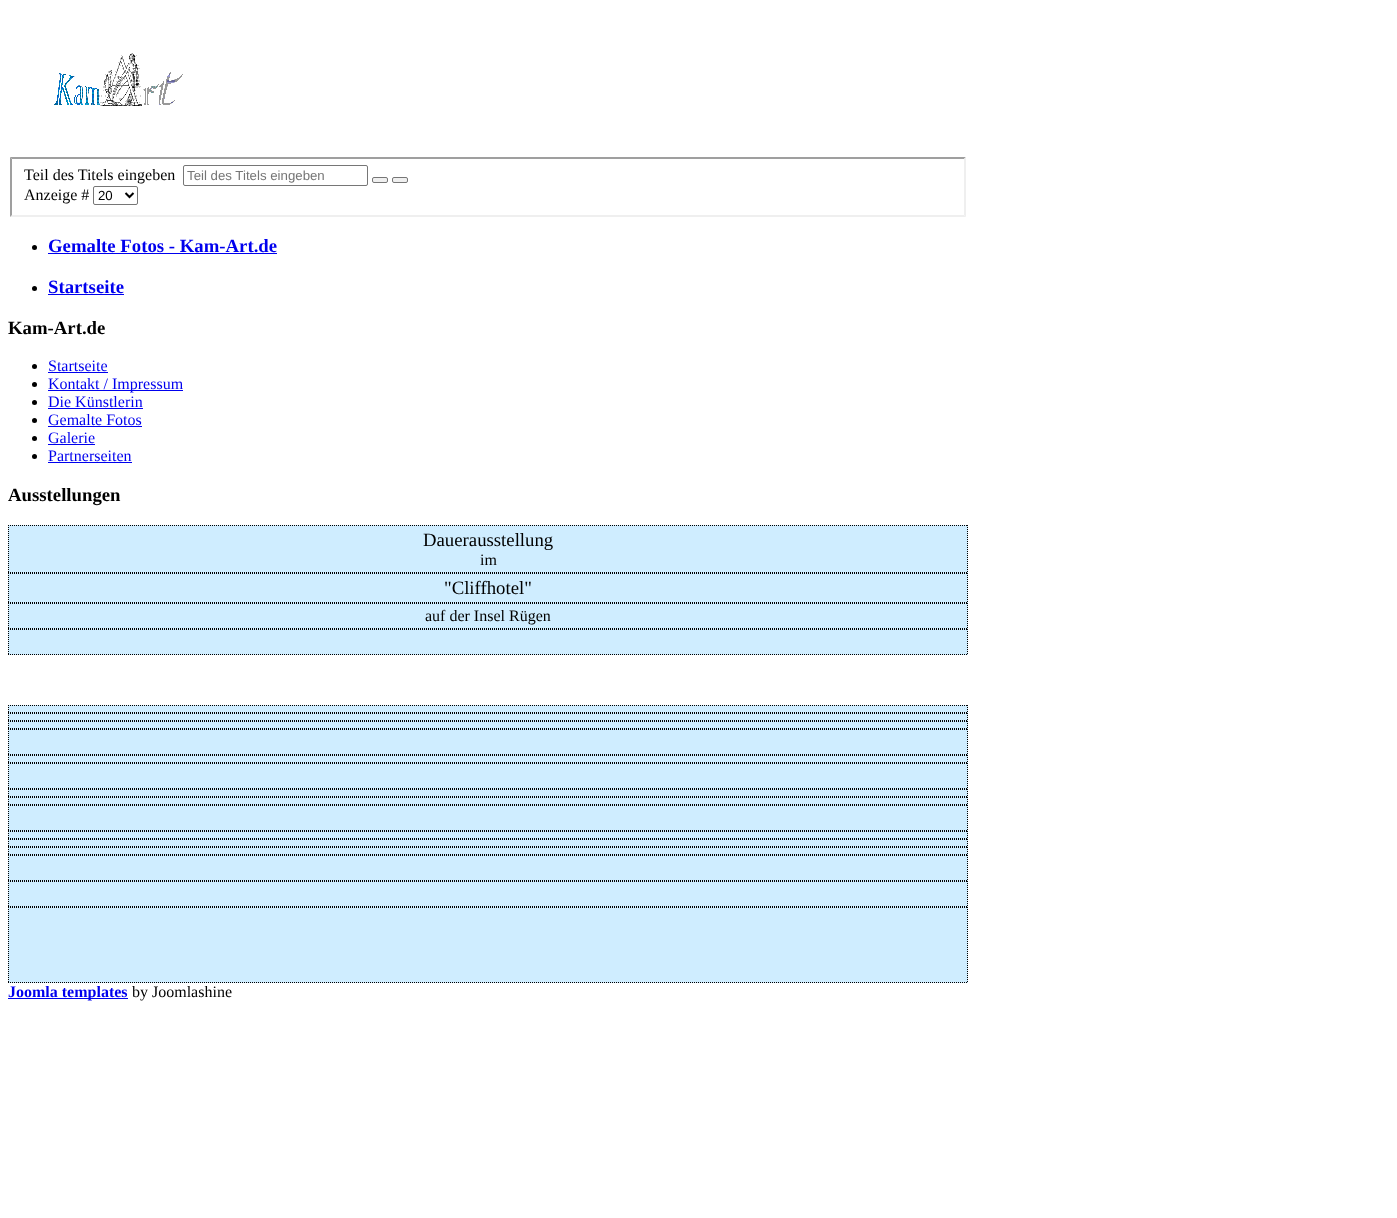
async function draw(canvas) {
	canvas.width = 1397;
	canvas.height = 1218;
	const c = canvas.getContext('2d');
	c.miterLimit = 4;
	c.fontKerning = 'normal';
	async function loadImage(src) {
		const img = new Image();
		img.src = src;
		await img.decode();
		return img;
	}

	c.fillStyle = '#fff';
	c.fillRect(0, 0, 1397, 1218);
	c.drawImage(await loadImage('img1.png'), 54, 53, 129, 53);
	c.fillStyle = '#9f9f9f';
	c.beginPath();
	c.moveTo(10, 157);
	c.lineTo(966, 157);
	c.lineTo(964, 159);
	c.lineTo(12, 159);
	c.closePath();
	c.fill();
	c.fillStyle = '#efefef';
	c.beginPath();
	c.moveTo(966, 157);
	c.lineTo(966, 217);
	c.lineTo(964, 215);
	c.lineTo(964, 159);
	c.closePath();
	c.fill();
	c.beginPath();
	c.moveTo(966, 217);
	c.lineTo(10, 217);
	c.lineTo(12, 215);
	c.lineTo(964, 215);
	c.closePath();
	c.fill();
	c.fillStyle = '#9f9f9f';
	c.beginPath();
	c.moveTo(10, 217);
	c.lineTo(10, 157);
	c.lineTo(12, 159);
	c.lineTo(12, 215);
	c.closePath();
	c.fill();
	c.font = '16px Liberation Serif';
	c.fillStyle = '#000';
	c.fillText('Teil des Titels eingeben', 24, 180);
	c.beginPath();
	c.roundRect(183.5, 165.5, 184, 20, 1.5);
	c.strokeStyle = '#767676';
	c.stroke();
	c.font = '13.25px Liberation Sans';
	c.fillStyle = '#757575';
	c.fillText('Teil des Titels eingeben', 187, 180);
	c.fillStyle = '#efefef';
	c.beginPath();
	c.roundRect(372.5, 177.5, 15, 5, 1.5);
	c.fill();
	c.stroke();
	c.beginPath();
	c.roundRect(392.5, 177.5, 15, 5, 1.5);
	c.fill();
	c.stroke();
	c.font = '16px Liberation Serif';
	c.fillStyle = '#000';
	c.fillText('Anzeige #', 24, 200);
	c.beginPath();
	c.roundRect(93.5, 186.5, 44, 18, 1.5);
	c.stroke();
	c.beginPath();
	c.moveTo(125.5, 193);
	c.lineTo(129.5, 197);
	c.lineTo(133.5, 193);
	c.strokeStyle = '#000';
	c.lineWidth = 2;
	c.stroke();
	c.font = '13.25px Liberation Sans';
	c.fillText('20', 98, 200);
	c.beginPath();
	c.arc(34.5, 247.5, 2.5, 0, 2 * Math.PI);
	c.fill();
	c.font = 'bold 18.75px Liberation Serif';
	c.fillStyle = '#00e';
	c.fillText('Gemalte Fotos - Kam-Art.de', 48, 252);
	c.fillRect(48, 253, 229, 1);
	c.fillStyle = '#000';
	c.beginPath();
	c.arc(34.5, 288.5, 2.5, 0, 2 * Math.PI);
	c.fill();
	c.fillStyle = '#00e';
	c.fillText('Startseite', 48, 293);
	c.fillRect(48, 294, 76, 1);
	c.fillStyle = '#000';
	c.fillText('Kam-Art.de', 8, 334);
	c.beginPath();
	c.arc(34.5, 366.5, 2.5, 0, 2 * Math.PI);
	c.fill();
	c.font = '16px Liberation Serif';
	c.fillStyle = '#00e';
	c.fillText('Startseite', 48, 371);
	c.fillRect(48, 372, 60, 1);
	c.fillStyle = '#000';
	c.beginPath();
	c.arc(34.5, 384.5, 2.5, 0, 2 * Math.PI);
	c.fill();
	c.fillStyle = '#00e';
	c.fillRect(48, 390, 135, 1);
	c.fillText('Kontakt / Impressum', 48, 389);
	c.fillStyle = '#000';
	c.beginPath();
	c.arc(34.5, 402.5, 2.5, 0, 2 * Math.PI);
	c.fill();
	c.fillStyle = '#00e';
	c.fillText('Die Künstlerin', 48, 407);
	c.fillRect(48, 408, 95, 1);
	c.fillStyle = '#000';
	c.beginPath();
	c.arc(34.5, 420.5, 2.5, 0, 2 * Math.PI);
	c.fill();
	c.fillStyle = '#00e';
	c.fillText('Gemalte Fotos', 48, 425);
	c.fillRect(48, 426, 94, 1);
	c.fillStyle = '#000';
	c.beginPath();
	c.arc(34.5, 438.5, 2.5, 0, 2 * Math.PI);
	c.fill();
	c.fillStyle = '#00e';
	c.fillText('Galerie', 48, 443);
	c.fillRect(48, 444, 47, 1);
	c.fillStyle = '#000';
	c.beginPath();
	c.arc(34.5, 456.5, 2.5, 0, 2 * Math.PI);
	c.fill();
	c.fillStyle = '#00e';
	c.fillText('Partnerseiten', 48, 461);
	c.fillRect(48, 462, 84, 1);
	c.font = 'bold 18.75px Liberation Serif';
	c.fillStyle = '#000';
	c.fillText('Ausstellungen', 8, 501);
	c.fillStyle = '#cfedff';
	c.fillRect(8, 525, 960, 130);
	c.beginPath();
	c.moveTo(8, 525.5);
	c.lineTo(968, 525.5);
	c.lineWidth = 1;
	c.setLineDash([1, 1]);
	c.stroke();
	c.beginPath();
	c.moveTo(967.5, 525);
	c.lineTo(967.5, 573);
	c.stroke();
	c.beginPath();
	c.moveTo(8, 572.5);
	c.lineTo(968, 572.5);
	c.stroke();
	c.beginPath();
	c.moveTo(8.5, 525);
	c.lineTo(8.5, 573);
	c.stroke();
	c.font = '18.75px Liberation Serif';
	c.fillStyle = '#000';
	c.fillText('Dauerausstellung', 423, 546);
	c.font = '16px Liberation Serif';
	c.fillText('im', 480, 565);
	c.beginPath();
	c.moveTo(8, 573.5);
	c.lineTo(968, 573.5);
	c.stroke();
	c.beginPath();
	c.moveTo(967.5, 573);
	c.lineTo(967.5, 603);
	c.stroke();
	c.beginPath();
	c.moveTo(8, 602.5);
	c.lineTo(968, 602.5);
	c.stroke();
	c.beginPath();
	c.moveTo(8.5, 573);
	c.lineTo(8.5, 603);
	c.stroke();
	c.font = '18.75px Liberation Serif';
	c.fillText('"Cliffhotel"', 444, 594);
	c.beginPath();
	c.moveTo(8, 603.5);
	c.lineTo(968, 603.5);
	c.stroke();
	c.beginPath();
	c.moveTo(967.5, 603);
	c.lineTo(967.5, 629);
	c.stroke();
	c.beginPath();
	c.moveTo(8, 628.5);
	c.lineTo(968, 628.5);
	c.stroke();
	c.beginPath();
	c.moveTo(8.5, 603);
	c.lineTo(8.5, 629);
	c.stroke();
	c.font = '16px Liberation Serif';
	c.fillText('auf der Insel Rügen', 425, 621);
	c.beginPath();
	c.moveTo(8, 629.5);
	c.lineTo(968, 629.5);
	c.stroke();
	c.beginPath();
	c.moveTo(967.5, 629);
	c.lineTo(967.5, 655);
	c.stroke();
	c.beginPath();
	c.moveTo(8, 654.5);
	c.lineTo(968, 654.5);
	c.stroke();
	c.beginPath();
	c.moveTo(8.5, 629);
	c.lineTo(8.5, 655);
	c.stroke();
	c.fillStyle = '#cfedff';
	c.fillRect(8, 705, 960, 278);
	c.beginPath();
	c.moveTo(8, 705.5);
	c.lineTo(968, 705.5);
	c.stroke();
	c.beginPath();
	c.moveTo(967.5, 705);
	c.lineTo(967.5, 713);
	c.stroke();
	c.beginPath();
	c.moveTo(8, 712.5);
	c.lineTo(968, 712.5);
	c.stroke();
	c.beginPath();
	c.moveTo(8.5, 705);
	c.lineTo(8.5, 713);
	c.stroke();
	c.beginPath();
	c.moveTo(8, 713.5);
	c.lineTo(968, 713.5);
	c.stroke();
	c.beginPath();
	c.moveTo(967.5, 713);
	c.lineTo(967.5, 721);
	c.stroke();
	c.beginPath();
	c.moveTo(8, 720.5);
	c.lineTo(968, 720.5);
	c.stroke();
	c.beginPath();
	c.moveTo(8.5, 713);
	c.lineTo(8.5, 721);
	c.stroke();
	c.beginPath();
	c.moveTo(8, 721.5);
	c.lineTo(968, 721.5);
	c.stroke();
	c.beginPath();
	c.moveTo(967.5, 721);
	c.lineTo(967.5, 729);
	c.stroke();
	c.beginPath();
	c.moveTo(8, 728.5);
	c.lineTo(968, 728.5);
	c.stroke();
	c.beginPath();
	c.moveTo(8.5, 721);
	c.lineTo(8.5, 729);
	c.stroke();
	c.beginPath();
	c.moveTo(8, 729.5);
	c.lineTo(968, 729.5);
	c.stroke();
	c.beginPath();
	c.moveTo(967.5, 729);
	c.lineTo(967.5, 755);
	c.stroke();
	c.beginPath();
	c.moveTo(8, 754.5);
	c.lineTo(968, 754.5);
	c.stroke();
	c.beginPath();
	c.moveTo(8.5, 729);
	c.lineTo(8.5, 755);
	c.stroke();
	c.beginPath();
	c.moveTo(8, 755.5);
	c.lineTo(968, 755.5);
	c.stroke();
	c.beginPath();
	c.moveTo(967.5, 755);
	c.lineTo(967.5, 763);
	c.stroke();
	c.beginPath();
	c.moveTo(8, 762.5);
	c.lineTo(968, 762.5);
	c.stroke();
	c.beginPath();
	c.moveTo(8.5, 755);
	c.lineTo(8.5, 763);
	c.stroke();
	c.beginPath();
	c.moveTo(8, 763.5);
	c.lineTo(968, 763.5);
	c.stroke();
	c.beginPath();
	c.moveTo(967.5, 763);
	c.lineTo(967.5, 789);
	c.stroke();
	c.beginPath();
	c.moveTo(8, 788.5);
	c.lineTo(968, 788.5);
	c.stroke();
	c.beginPath();
	c.moveTo(8.5, 763);
	c.lineTo(8.5, 789);
	c.stroke();
	c.beginPath();
	c.moveTo(8, 789.5);
	c.lineTo(968, 789.5);
	c.stroke();
	c.beginPath();
	c.moveTo(967.5, 789);
	c.lineTo(967.5, 797);
	c.stroke();
	c.beginPath();
	c.moveTo(8, 796.5);
	c.lineTo(968, 796.5);
	c.stroke();
	c.beginPath();
	c.moveTo(8.5, 789);
	c.lineTo(8.5, 797);
	c.stroke();
	c.beginPath();
	c.moveTo(8, 797.5);
	c.lineTo(968, 797.5);
	c.stroke();
	c.beginPath();
	c.moveTo(967.5, 797);
	c.lineTo(967.5, 805);
	c.stroke();
	c.beginPath();
	c.moveTo(8, 804.5);
	c.lineTo(968, 804.5);
	c.stroke();
	c.beginPath();
	c.moveTo(8.5, 797);
	c.lineTo(8.5, 805);
	c.stroke();
	c.beginPath();
	c.moveTo(8, 805.5);
	c.lineTo(968, 805.5);
	c.stroke();
	c.beginPath();
	c.moveTo(967.5, 805);
	c.lineTo(967.5, 831);
	c.stroke();
	c.beginPath();
	c.moveTo(8, 830.5);
	c.lineTo(968, 830.5);
	c.stroke();
	c.beginPath();
	c.moveTo(8.5, 805);
	c.lineTo(8.5, 831);
	c.stroke();
	c.beginPath();
	c.moveTo(8, 831.5);
	c.lineTo(968, 831.5);
	c.stroke();
	c.beginPath();
	c.moveTo(967.5, 831);
	c.lineTo(967.5, 839);
	c.stroke();
	c.beginPath();
	c.moveTo(8, 838.5);
	c.lineTo(968, 838.5);
	c.stroke();
	c.beginPath();
	c.moveTo(8.5, 831);
	c.lineTo(8.5, 839);
	c.stroke();
	c.beginPath();
	c.moveTo(8, 839.5);
	c.lineTo(968, 839.5);
	c.stroke();
	c.beginPath();
	c.moveTo(967.5, 839);
	c.lineTo(967.5, 847);
	c.stroke();
	c.beginPath();
	c.moveTo(8, 846.5);
	c.lineTo(968, 846.5);
	c.stroke();
	c.beginPath();
	c.moveTo(8.5, 839);
	c.lineTo(8.5, 847);
	c.stroke();
	c.beginPath();
	c.moveTo(8, 847.5);
	c.lineTo(968, 847.5);
	c.stroke();
	c.beginPath();
	c.moveTo(967.5, 847);
	c.lineTo(967.5, 855);
	c.stroke();
	c.beginPath();
	c.moveTo(8, 854.5);
	c.lineTo(968, 854.5);
	c.stroke();
	c.beginPath();
	c.moveTo(8.5, 847);
	c.lineTo(8.5, 855);
	c.stroke();
	c.beginPath();
	c.moveTo(8, 855.5);
	c.lineTo(968, 855.5);
	c.stroke();
	c.beginPath();
	c.moveTo(967.5, 855);
	c.lineTo(967.5, 881);
	c.stroke();
	c.beginPath();
	c.moveTo(8, 880.5);
	c.lineTo(968, 880.5);
	c.stroke();
	c.beginPath();
	c.moveTo(8.5, 855);
	c.lineTo(8.5, 881);
	c.stroke();
	c.beginPath();
	c.moveTo(8, 881.5);
	c.lineTo(968, 881.5);
	c.stroke();
	c.beginPath();
	c.moveTo(967.5, 881);
	c.lineTo(967.5, 907);
	c.stroke();
	c.beginPath();
	c.moveTo(8, 906.5);
	c.lineTo(968, 906.5);
	c.stroke();
	c.beginPath();
	c.moveTo(8.5, 881);
	c.lineTo(8.5, 907);
	c.stroke();
	c.beginPath();
	c.moveTo(8, 907.5);
	c.lineTo(968, 907.5);
	c.stroke();
	c.beginPath();
	c.moveTo(967.5, 907);
	c.lineTo(967.5, 983);
	c.stroke();
	c.beginPath();
	c.moveTo(8, 982.5);
	c.lineTo(968, 982.5);
	c.stroke();
	c.beginPath();
	c.moveTo(8.5, 907);
	c.lineTo(8.5, 983);
	c.stroke();
	c.fillStyle = '#00e';
	c.fillRect(8, 998, 120, 1);
	c.font = 'bold 16px Liberation Serif';
	c.fillText('Joomla templates', 8, 997);
	c.font = '16px Liberation Serif';
	c.fillStyle = '#000';
	c.fillText('by Joomlashine', 132, 997);
}

draw(document.querySelector('canvas'));
